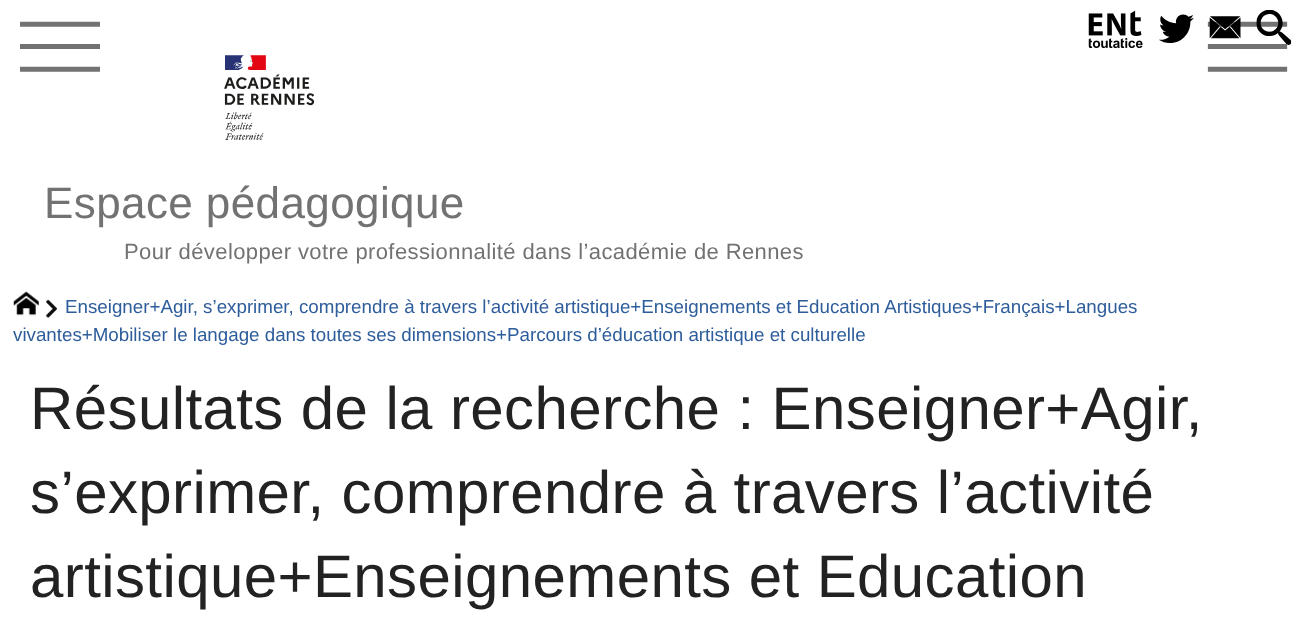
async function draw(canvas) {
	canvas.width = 1307;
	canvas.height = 631;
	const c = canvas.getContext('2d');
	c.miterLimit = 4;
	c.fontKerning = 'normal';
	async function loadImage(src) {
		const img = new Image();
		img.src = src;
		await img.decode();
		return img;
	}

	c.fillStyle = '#fff';
	c.fillRect(0, 0, 1307, 631);
	c.drawImage(await loadImage('img1.png'), 1088, 10, 55, 38);
	c.drawImage(await loadImage('img2.png'), 1159, 14, 35, 29);
	c.drawImage(await loadImage('img6.png'), 1207, 21, 81, 51);
	c.drawImage(await loadImage('img3.png'), 1209, 16, 32, 23);
	c.drawImage(await loadImage('img4.png'), 1256, 10, 36, 35);
	c.drawImage(await loadImage('img5.png'), 20, 21, 80, 51);
	c.drawImage(await loadImage('img7.png'), 224, 55, 91, 85);
	c.letterSpacing = '0.4px';
	c.font = '44px Liberation Sans';
	c.fillStyle = '#727272';
	c.fillText('Espace pédagogique', 44, 218);
	c.font = '22px Liberation Sans';
	c.fillText('Pour développer votre professionnalité dans l’académie de Rennes', 124, 259);
	c.drawImage(await loadImage('img8.png'), 46, 300, 11, 18);
	c.drawImage(await loadImage('img9.png'), 13, 291, 26, 25);
	c.letterSpacing = '0px';
	c.font = '18.75px Liberation Sans';
	c.fillStyle = '#2e5d9b';
	c.fillText('Enseigner+Agir, s’exprimer, comprendre à travers l’activité artistique+Enseignements et Education Artistiques+Français+Langues', 65, 313);
	c.fillText('vivantes+Mobiliser le langage dans toutes ses dimensions+Parcours d’éducation artistique et culturelle', 13, 341);
	c.letterSpacing = '0.4px';
	c.font = '60px Liberation Sans';
	c.fillStyle = '#222';
	for (const [text, x, y] of [
		['Résultats de la recherche : Enseigner+Agir,', 30, 429],
		['s’exprimer, comprendre à travers l’activité', 30, 513],
		['artistique+Enseignements et Education', 30, 597],
	]) {
		c.fillText(text, x, y);
	}
}

draw(document.querySelector('canvas'));
